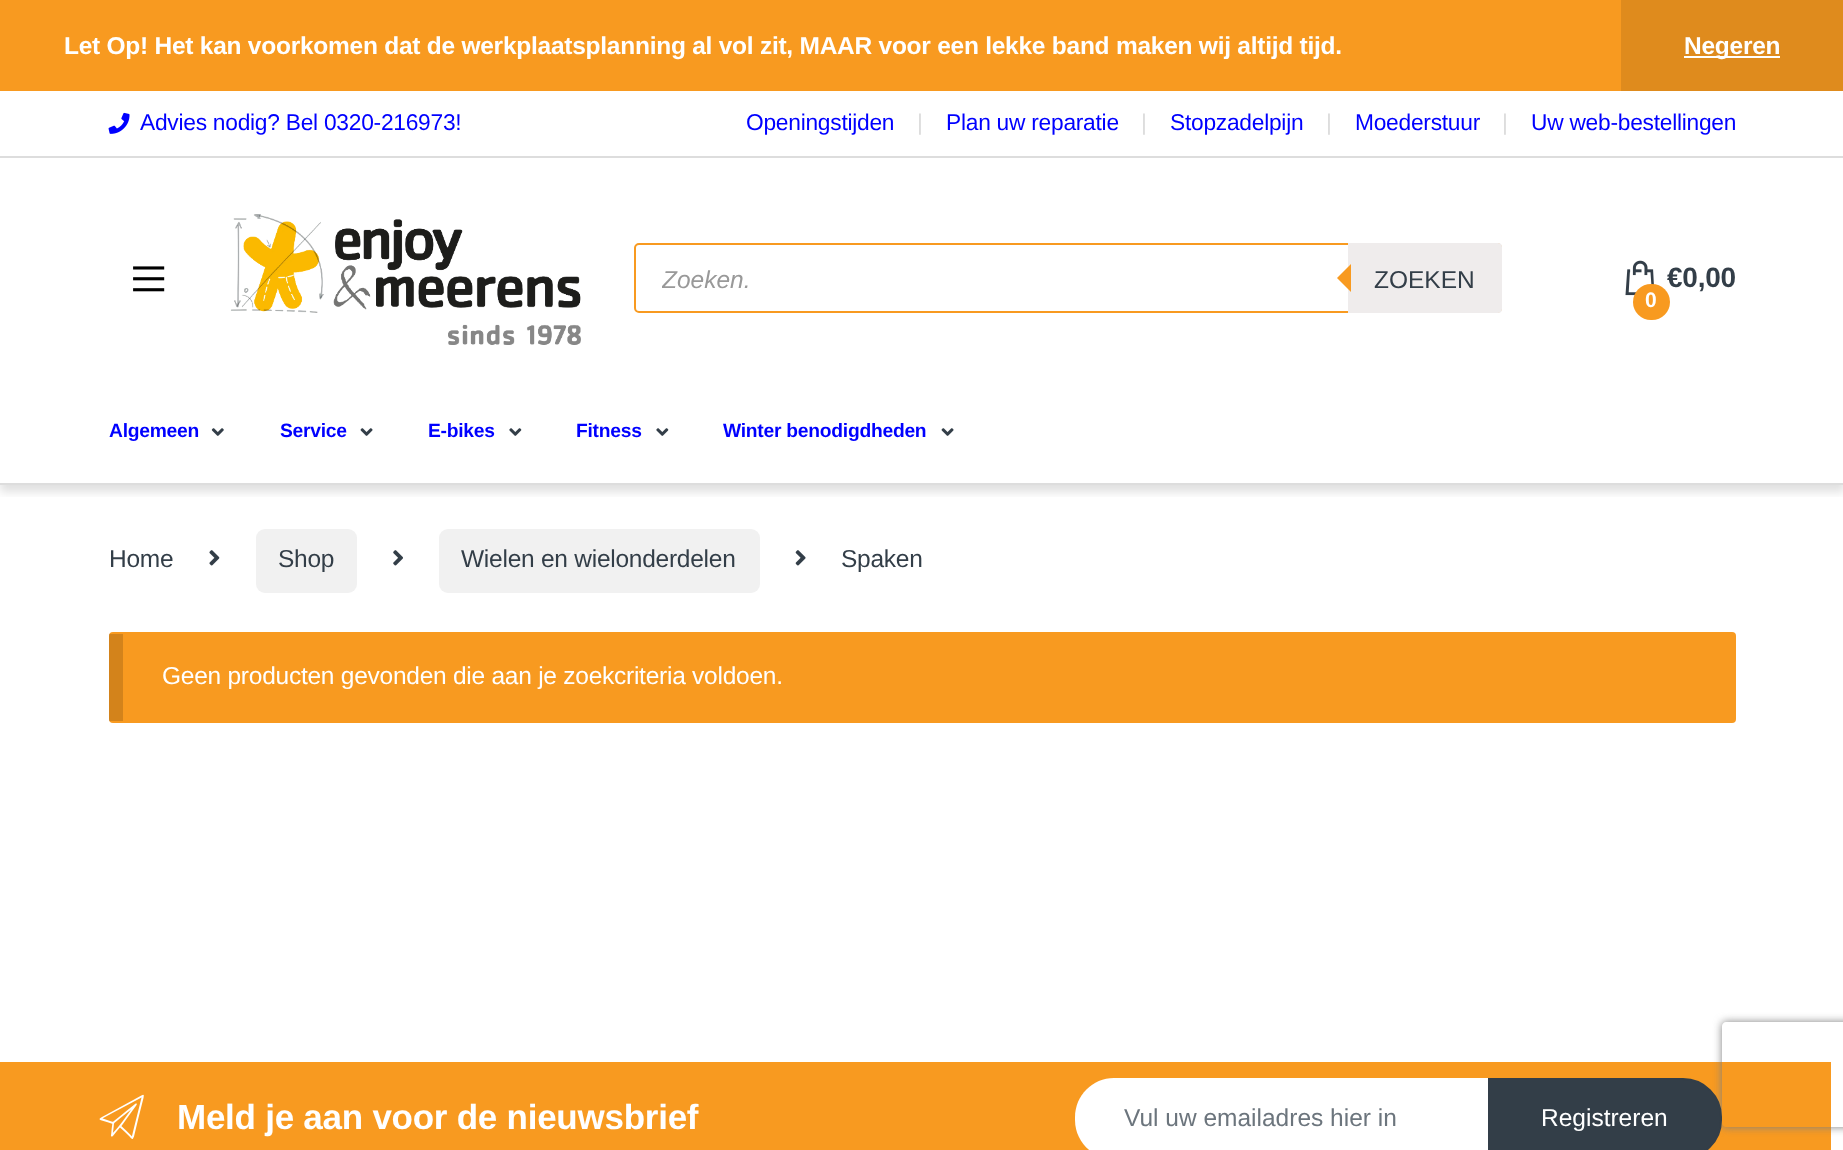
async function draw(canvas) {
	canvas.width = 1843;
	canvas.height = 1150;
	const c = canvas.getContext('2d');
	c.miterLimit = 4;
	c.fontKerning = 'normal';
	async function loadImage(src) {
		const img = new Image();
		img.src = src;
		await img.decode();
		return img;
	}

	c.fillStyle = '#fff';
	c.fillRect(0, 0, 1843, 1150);
	c.fillStyle = '#f89a20';
	c.fillRect(0, 0, 1621, 91);
	c.letterSpacing = '-0.25px';
	c.font = 'bold 24.5px Liberation Sans';
	c.fillStyle = '#fff';
	c.fillText('Let Op! Het kan voorkomen dat de werkplaatsplanning al vol zit, MAAR voor een lekke band maken wij altijd tijd.', 64, 54);
	c.fillStyle = '#df8b1d';
	c.fillRect(1621, 0, 222, 91);
	c.fillStyle = '#fff';
	c.fillRect(1684, 56, 96, 2);
	c.fillText('Negeren', 1684, 54);
	c.fillStyle = '#ddd';
	c.fillRect(0, 156, 1843, 2);
	c.drawImage(await loadImage('img1.png'), 108, 112, 22, 22);
	c.font = '22.75px Liberation Sans';
	c.fillStyle = '#00f';
	c.fillText('Advies nodig? Bel 0320-216973!', 140, 130);
	c.fillText('Openingstijden', 746, 130);
	c.fillStyle = '#ddd';
	c.fillText('|', 917, 130);
	c.fillStyle = '#00f';
	c.fillText('Plan uw reparatie', 946, 130);
	c.fillStyle = '#ddd';
	c.fillText('|', 1141, 130);
	c.fillStyle = '#00f';
	c.fillText('Stopzadelpijn', 1170, 130);
	c.fillStyle = '#ddd';
	c.fillText('|', 1326, 130);
	c.fillStyle = '#00f';
	c.fillText('Moederstuur', 1355, 130);
	c.fillStyle = '#ddd';
	c.fillText('|', 1502, 130);
	c.fillStyle = '#00f';
	c.fillText('Uw web-bestellingen', 1531, 130);
	c.save();
	c.beginPath();
	c.rect(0, 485, 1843, 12);
	c.clip();
	c.fillStyle = '#0000001f';
	c.filter = 'blur(5px)';
	c.beginPath();
	c.rect(0, 165, 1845, 327);
	c.fill();
	c.filter = 'none';
	c.restore();
	c.fillStyle = '#ddd';
	c.fillRect(0, 483, 1843, 2);
	c.drawImage(await loadImage('img2.png'), 133, 266, 32, 26);
	c.drawImage(await loadImage('img3.png'), 230, 214, 351, 131);
	c.beginPath();
	c.roundRect(635, 244, 866, 68, 4);
	c.strokeStyle = '#f89a20';
	c.lineWidth = 2;
	c.stroke();
	c.save();
	c.beginPath();
	c.rect(662, 264, 812, 28);
	c.clip();
	c.letterSpacing = '0px';
	c.font = 'italic 24.5px Liberation Sans';
	c.fillStyle = '#999';
	c.fillText('Zoeken.', 662, 288);
	c.restore();
	c.fillStyle = '#efecec';
	c.beginPath();
	c.roundRect(1348, 243, 154, 70, [0, 4, 4, 0]);
	c.fill();
	c.fillStyle = '#f89a20';
	c.beginPath();
	c.moveTo(1351, 264);
	c.lineTo(1351, 292);
	c.lineTo(1337, 278);
	c.closePath();
	c.fill();
	c.letterSpacing = '0px';
	c.font = '24.5px Liberation Sans';
	c.fillStyle = '#333e48';
	c.fillText('ZOEKEN', 1374, 288);
	c.drawImage(await loadImage('img4.png'), 1625, 260, 29, 36);
	c.letterSpacing = '-0.25px';
	c.font = 'bold 28px Liberation Sans';
	c.fillText('€0,00', 1667, 287);
	c.fillStyle = '#f89a20';
	c.beginPath();
	c.roundRect(1633, 284, 37, 36, 18);
	c.fill();
	c.font = 'bold 21px Liberation Sans';
	c.fillStyle = '#fff';
	c.fillText('0', 1645, 307);
	c.font = 'bold 19.25px Liberation Sans';
	c.fillStyle = '#00f';
	c.fillText('Algemeen', 109, 437);
	c.drawImage(await loadImage('img5.png'), 211, 428, 13, 8);
	c.fillText('Service', 280, 437);
	c.drawImage(await loadImage('img6.png'), 360, 428, 13, 8);
	c.fillText('E-bikes', 428, 437);
	c.drawImage(await loadImage('img7.png'), 509, 428, 13, 8);
	c.fillText('Fitness', 576, 437);
	c.drawImage(await loadImage('img7.png'), 656, 428, 13, 8);
	c.fillText('Winter benodigdheden', 723, 437);
	c.drawImage(await loadImage('img6.png'), 941, 428, 13, 8);
	c.font = '24.5px Liberation Sans';
	c.fillStyle = '#333e48';
	c.fillText('Home', 109, 567);
	c.drawImage(await loadImage('img8.png'), 209, 550, 11, 16);
	c.fillStyle = '#f1f1f1';
	c.beginPath();
	c.roundRect(256, 529, 101, 64, 9);
	c.fill();
	c.fillStyle = '#333e48';
	c.fillText('Shop', 278, 567);
	c.drawImage(await loadImage('img9.png'), 393, 550, 10, 16);
	c.fillStyle = '#f1f1f1';
	c.beginPath();
	c.roundRect(439, 529, 321, 64, 9);
	c.fill();
	c.fillStyle = '#333e48';
	c.fillText('Wielen en wielonderdelen', 461, 567);
	c.drawImage(await loadImage('img10.png'), 795, 550, 11, 16);
	c.fillText('Spaken', 841, 567);
	c.fillStyle = '#f89a20';
	c.beginPath();
	c.roundRect(109, 632, 1627, 91, 4);
	c.fill();
	c.fillStyle = '#00000026';
	c.fillRect(109, 634, 14, 87);
	c.fillStyle = '#fff';
	c.fillText('Geen producten gevonden die aan je zoekcriteria voldoen.', 162, 684);
	c.fillStyle = '#f89a20';
	c.fillRect(0, 1062, 1831, 88);
	c.drawImage(await loadImage('img11.png'), 99, 1094, 45, 45);
	c.font = 'bold 35px Liberation Sans';
	c.fillStyle = '#fff';
	c.fillText('Meld je aan voor de nieuwsbrief', 177, 1129);
	c.beginPath();
	c.moveTo(1114, 1078);
	c.lineTo(1489, 1078);
	c.lineTo(1489, 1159);
	c.lineTo(1114, 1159);
	c.bezierCurveTo(1092.5, 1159, 1075, 1141.5, 1075, 1120);
	c.lineTo(1075, 1117);
	c.bezierCurveTo(1075, 1095.5, 1092.5, 1078, 1114, 1078);
	c.closePath();
	c.fill();
	c.letterSpacing = '0px';
	c.font = '24.5px Liberation Sans';
	c.fillStyle = '#6c757d';
	c.fillText('Vul uw emailadres hier in', 1124, 1126);
	c.save();
	c.beginPath();
	c.moveTo(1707, 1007);
	c.lineTo(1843, 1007);
	c.lineTo(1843, 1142);
	c.lineTo(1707, 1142);
	c.closePath();
	c.moveTo(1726, 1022);
	c.lineTo(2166, 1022);
	c.bezierCurveTo(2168, 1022, 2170, 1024, 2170, 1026);
	c.lineTo(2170, 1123);
	c.bezierCurveTo(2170, 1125, 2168, 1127, 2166, 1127);
	c.lineTo(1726, 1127);
	c.bezierCurveTo(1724, 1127, 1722, 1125, 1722, 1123);
	c.lineTo(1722, 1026);
	c.bezierCurveTo(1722, 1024, 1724, 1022, 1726, 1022);
	c.closePath();
	c.clip('evenodd');
	c.fillStyle = '#808080';
	c.filter = 'blur(4.5px)';
	c.beginPath();
	c.roundRect(1722, 1022, 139, 105, 4);
	c.fill();
	c.filter = 'none';
	c.restore();
	c.fillStyle = '#333e48';
	c.beginPath();
	c.moveTo(1489, 1079);
	c.lineTo(1683, 1079);
	c.bezierCurveTo(1704, 1079, 1721, 1096, 1721, 1117);
	c.lineTo(1721, 1120);
	c.bezierCurveTo(1721, 1141, 1704, 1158, 1683, 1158);
	c.lineTo(1489, 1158);
	c.closePath();
	c.fill();
	c.strokeStyle = '#333e48';
	c.stroke();
	c.fillStyle = '#fff';
	c.fillText('Registreren', 1541, 1126);
}

draw(document.querySelector('canvas'));
